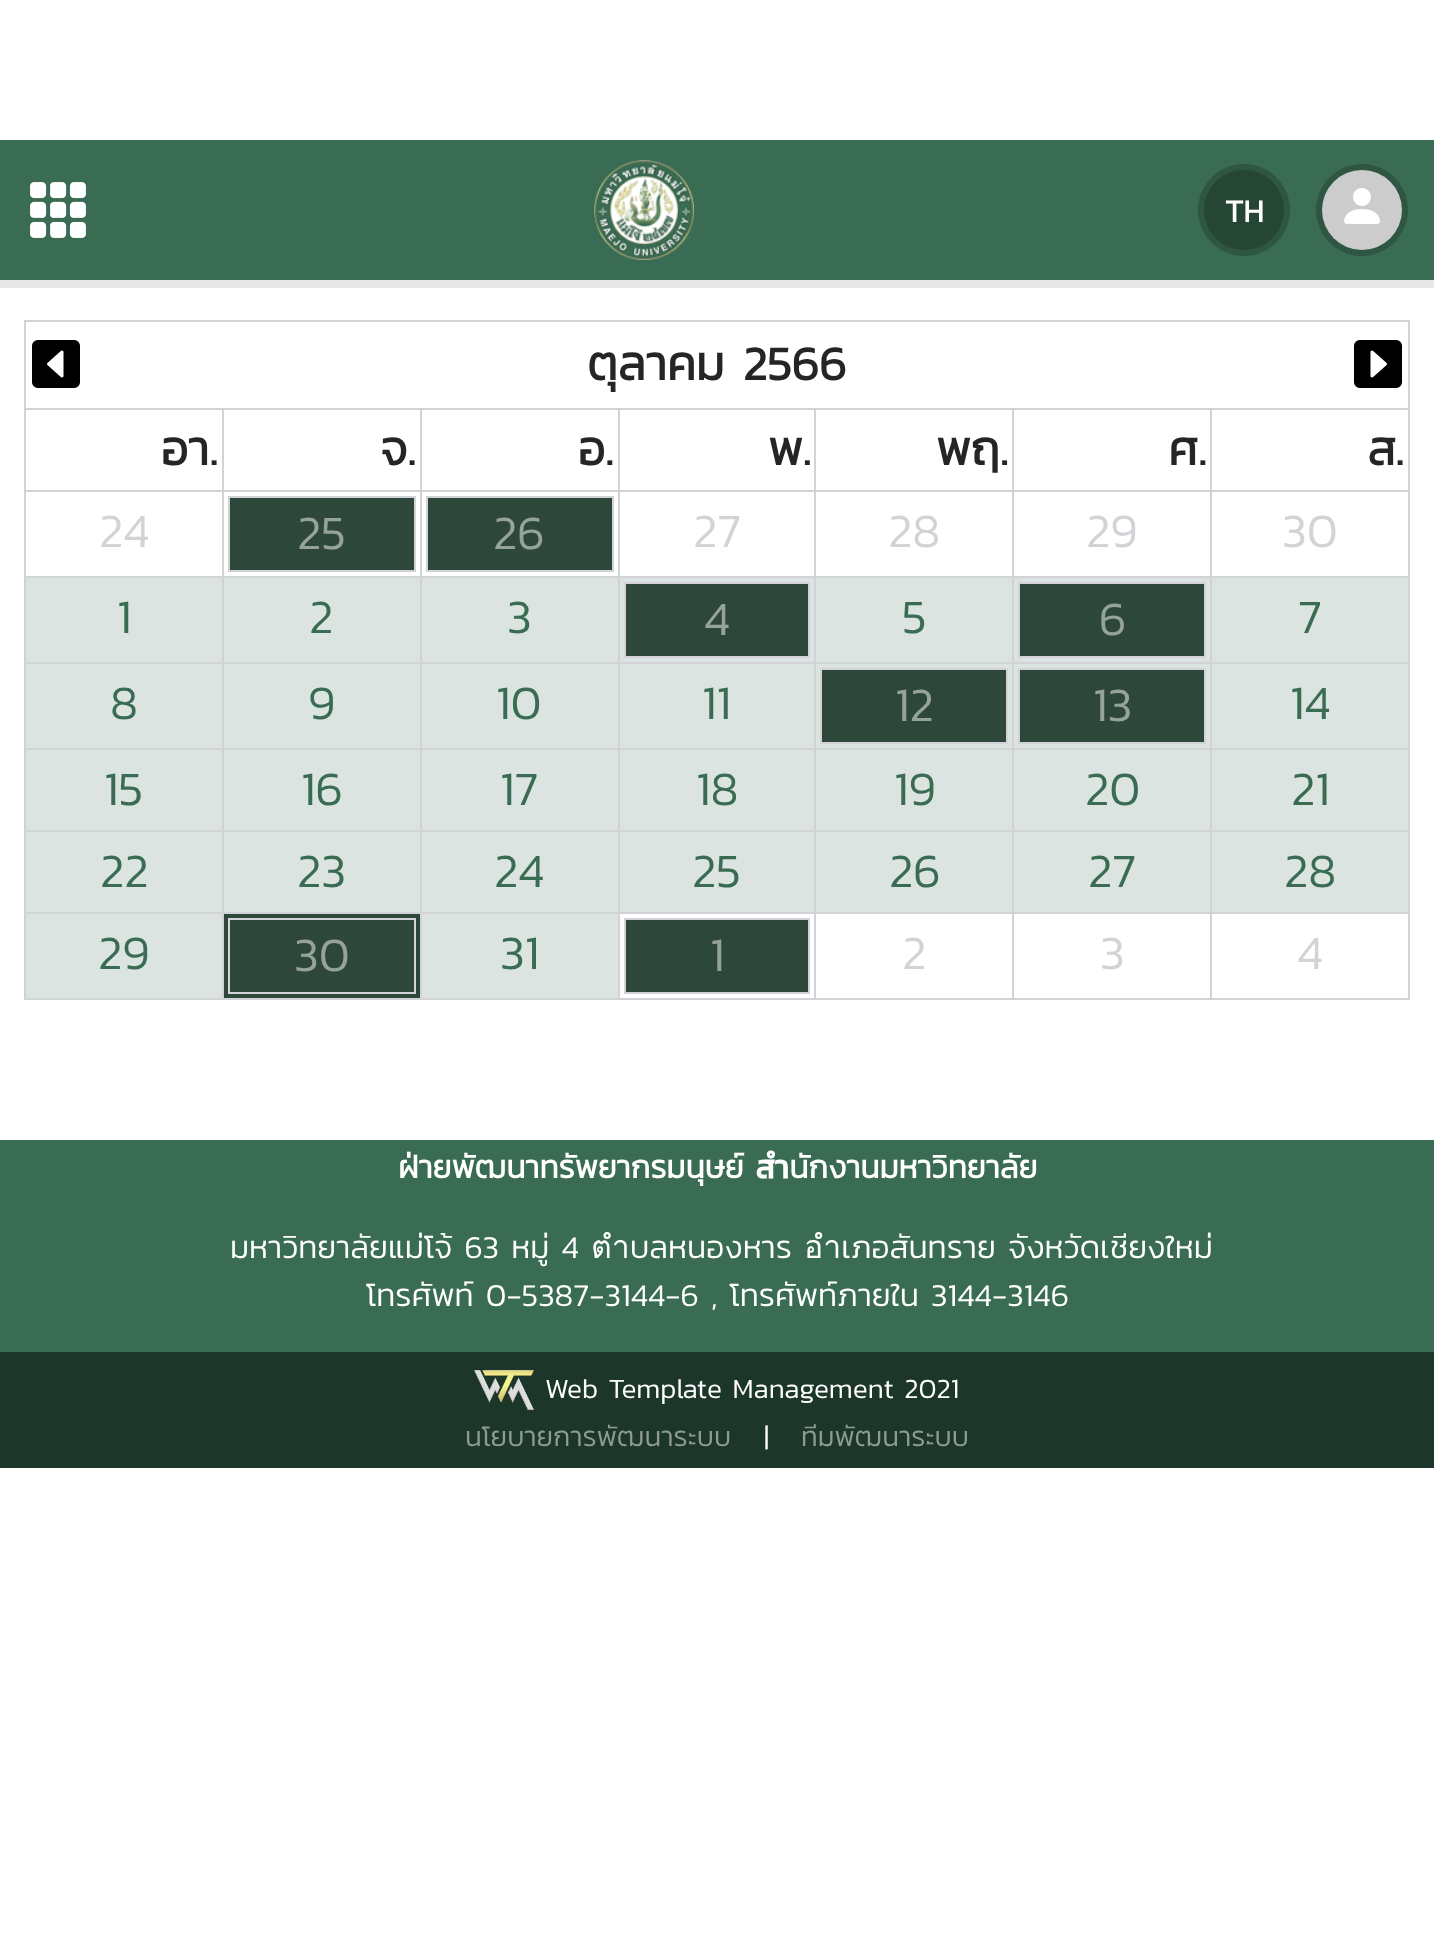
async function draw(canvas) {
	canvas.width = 1434;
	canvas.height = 1955;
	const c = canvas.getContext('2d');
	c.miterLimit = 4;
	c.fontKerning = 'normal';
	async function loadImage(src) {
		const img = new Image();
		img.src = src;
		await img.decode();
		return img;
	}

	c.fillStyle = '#fff';
	c.fillRect(0, 0, 1434, 1955);
	c.fillStyle = '#3a6c53';
	c.fillRect(0, 140, 1434, 140);
	c.drawImage(await loadImage('img1.png'), 30, 182, 56, 56);
	c.drawImage(await loadImage('img2.png'), 594, 160, 100, 100);
	c.fillStyle = '#2e5642';
	c.beginPath();
	c.arc(1244, 210, 46, 0, 2 * Math.PI);
	c.fill();
	c.fillStyle = '#254535';
	c.beginPath();
	c.arc(1244, 210, 40, 0, 2 * Math.PI);
	c.fill();
	c.font = 'bold 32px Kanit';
	c.fillStyle = '#fff';
	c.fillText('TH', 1225, 222);
	c.fillStyle = '#2e5642';
	c.beginPath();
	c.arc(1362, 210, 46, 0, 2 * Math.PI);
	c.fill();
	c.fillStyle = '#ccc';
	c.beginPath();
	c.arc(1362, 210, 40, 0, 2 * Math.PI);
	c.fill();
	c.drawImage(await loadImage('img3.png'), 1344, 188, 36, 36);
	for (const [x, y, w, h, color] of [
		[0, 280, 1434, 8, '#e8e8e8'],
		[24, 320, 1386, 2, '#d1d3d6'],
		[1408, 320, 2, 680, '#d1d3d6'],
		[24, 998, 1386, 2, '#d1d3d6'],
		[24, 320, 2, 680, '#d1d3d6'],
	]) {
		c.fillStyle = color;
		c.fillRect(x, y, w, h);
	}
	c.drawImage(await loadImage('img4.png'), 32, 340, 48, 48);
	c.font = 'bold 48px Kanit';
	c.fillStyle = '#232526';
	c.fillText('ตุลาคม 2566', 587, 380);
	c.drawImage(await loadImage('img5.png'), 1354, 340, 48, 48);
	for (const [x, y, w, h, color] of [
		[1210, 408, 200, 2, '#d1d3d6'],
		[1210, 490, 200, 2, '#d1d3d6'],
		[1210, 576, 200, 2, '#d1d3d6'],
		[1210, 662, 200, 2, '#d1d3d6'],
		[1210, 748, 200, 2, '#d1d3d6'],
		[1210, 830, 200, 2, '#d1d3d6'],
		[1210, 912, 200, 2, '#d1d3d6'],
		[1210, 912, 2, 88, '#d1d3d6'],
		[1012, 912, 200, 2, '#d1d3d6'],
		[1210, 830, 2, 84, '#d1d3d6'],
		[1012, 830, 200, 2, '#d1d3d6'],
		[1210, 748, 2, 84, '#d1d3d6'],
		[1012, 748, 200, 2, '#d1d3d6'],
		[1210, 662, 2, 88, '#d1d3d6'],
		[1012, 662, 200, 2, '#d1d3d6'],
		[1210, 576, 2, 88, '#d1d3d6'],
		[1012, 576, 200, 2, '#d1d3d6'],
		[1210, 490, 2, 88, '#d1d3d6'],
		[1012, 490, 200, 2, '#d1d3d6'],
		[1210, 408, 2, 84, '#d1d3d6'],
		[1012, 408, 200, 2, '#d1d3d6'],
		[1012, 912, 2, 88, '#d1d3d6'],
		[814, 912, 200, 2, '#d1d3d6'],
		[1012, 830, 2, 84, '#d1d3d6'],
		[814, 830, 200, 2, '#d1d3d6'],
		[1012, 748, 2, 84, '#d1d3d6'],
		[814, 748, 200, 2, '#d1d3d6'],
		[1012, 662, 2, 88, '#d1d3d6'],
		[814, 662, 200, 2, '#d1d3d6'],
		[1012, 576, 2, 88, '#d1d3d6'],
		[814, 576, 200, 2, '#d1d3d6'],
		[1012, 490, 2, 88, '#d1d3d6'],
		[814, 490, 200, 2, '#d1d3d6'],
		[1012, 408, 2, 84, '#d1d3d6'],
		[814, 408, 200, 2, '#d1d3d6'],
		[814, 912, 2, 88, '#d1d3d6'],
		[618, 912, 198, 2, '#d1d3d6'],
		[814, 830, 2, 84, '#d1d3d6'],
		[618, 830, 198, 2, '#d1d3d6'],
		[814, 748, 2, 84, '#d1d3d6'],
		[618, 748, 198, 2, '#d1d3d6'],
		[814, 662, 2, 88, '#d1d3d6'],
		[618, 662, 198, 2, '#d1d3d6'],
		[814, 576, 2, 88, '#d1d3d6'],
		[618, 576, 198, 2, '#d1d3d6'],
		[814, 490, 2, 88, '#d1d3d6'],
		[618, 490, 198, 2, '#d1d3d6'],
		[814, 408, 2, 84, '#d1d3d6'],
		[618, 408, 198, 2, '#d1d3d6'],
		[618, 912, 2, 88, '#d1d3d6'],
		[420, 912, 200, 2, '#d1d3d6'],
		[618, 830, 2, 84, '#d1d3d6'],
		[420, 830, 200, 2, '#d1d3d6'],
		[618, 748, 2, 84, '#d1d3d6'],
		[420, 748, 200, 2, '#d1d3d6'],
		[618, 662, 2, 88, '#d1d3d6'],
		[420, 662, 200, 2, '#d1d3d6'],
		[618, 576, 2, 88, '#d1d3d6'],
		[420, 576, 200, 2, '#d1d3d6'],
		[618, 490, 2, 88, '#d1d3d6'],
		[420, 490, 200, 2, '#d1d3d6'],
		[618, 408, 2, 84, '#d1d3d6'],
		[420, 408, 200, 2, '#d1d3d6'],
		[420, 912, 2, 88, '#d1d3d6'],
		[222, 912, 200, 2, '#d1d3d6'],
		[420, 830, 2, 84, '#d1d3d6'],
		[222, 830, 200, 2, '#d1d3d6'],
		[420, 748, 2, 84, '#d1d3d6'],
		[222, 748, 200, 2, '#d1d3d6'],
		[420, 662, 2, 88, '#d1d3d6'],
		[222, 662, 200, 2, '#d1d3d6'],
		[420, 576, 2, 88, '#d1d3d6'],
		[222, 576, 200, 2, '#d1d3d6'],
		[420, 490, 2, 88, '#d1d3d6'],
		[222, 490, 200, 2, '#d1d3d6'],
		[420, 408, 2, 84, '#d1d3d6'],
		[222, 408, 200, 2, '#d1d3d6'],
		[222, 912, 2, 88, '#d1d3d6'],
		[24, 912, 200, 2, '#d1d3d6'],
		[222, 830, 2, 84, '#d1d3d6'],
		[24, 830, 200, 2, '#d1d3d6'],
		[222, 748, 2, 84, '#d1d3d6'],
		[24, 748, 200, 2, '#d1d3d6'],
		[222, 662, 2, 88, '#d1d3d6'],
		[24, 662, 200, 2, '#d1d3d6'],
		[222, 576, 2, 88, '#d1d3d6'],
		[24, 576, 200, 2, '#d1d3d6'],
		[222, 490, 2, 88, '#d1d3d6'],
		[24, 490, 200, 2, '#d1d3d6'],
		[222, 408, 2, 84, '#d1d3d6'],
		[24, 408, 200, 2, '#d1d3d6'],
	]) {
		c.fillStyle = color;
		c.fillRect(x, y, w, h);
	}
	c.fillStyle = '#232526';
	for (const [text, x, y] of [
		['อา.', 161, 465],
		['จ.', 380, 465],
		['อ.', 578, 465],
		['พ.', 768, 465],
		['พฤ.', 936, 465],
		['ศ.', 1168, 465],
		['ส.', 1367, 465],
	]) {
		c.fillText(text, x, y);
	}
	c.font = '300 48px Kanit';
	c.fillStyle = '#d1d3d6';
	c.fillText('24', 99, 547);
	c.fillStyle = '#2d473b';
	c.beginPath();
	c.rect(229, 497, 186, 74);
	c.fill();
	c.strokeStyle = '#d1d3d6';
	c.lineWidth = 2;
	c.stroke();
	c.fillStyle = '#96a39d';
	c.fillText('25', 297, 549);
	c.fillStyle = '#2d473b';
	c.beginPath();
	c.rect(427, 497, 186, 74);
	c.fill();
	c.stroke();
	c.fillStyle = '#96a39d';
	c.fillText('26', 493, 549);
	c.fillStyle = '#d1d3d6';
	for (const [text, x, y] of [
		['27', 693, 547],
		['28', 888, 547],
		['29', 1086, 547],
		['30', 1282, 547],
	]) {
		c.fillText(text, x, y);
	}
	c.fillStyle = '#dbe4e0';
	c.fillRect(26, 578, 196, 84);
	c.fillStyle = '#3a6c53';
	c.fillText('1', 117, 633);
	c.fillStyle = '#dbe4e0';
	c.fillRect(224, 578, 196, 84);
	c.fillStyle = '#3a6c53';
	c.fillText('2', 309, 633);
	c.fillStyle = '#dbe4e0';
	c.fillRect(422, 578, 196, 84);
	c.fillStyle = '#3a6c53';
	c.fillText('3', 507, 633);
	c.fillStyle = '#dbe4e0';
	c.fillRect(620, 578, 194, 84);
	c.fillStyle = '#2d473b';
	c.beginPath();
	c.rect(625, 583, 184, 74);
	c.fill();
	c.stroke();
	c.fillStyle = '#96a39d';
	c.fillText('4', 704, 635);
	c.fillStyle = '#dbe4e0';
	c.fillRect(816, 578, 196, 84);
	c.fillStyle = '#3a6c53';
	c.fillText('5', 902, 633);
	c.fillStyle = '#dbe4e0';
	c.fillRect(1014, 578, 196, 84);
	c.fillStyle = '#2d473b';
	c.beginPath();
	c.rect(1019, 583, 186, 74);
	c.fill();
	c.stroke();
	c.fillStyle = '#96a39d';
	c.fillText('6', 1099, 635);
	c.fillStyle = '#dbe4e0';
	c.fillRect(1212, 578, 196, 84);
	c.fillStyle = '#3a6c53';
	c.fillText('7', 1298, 633);
	c.fillStyle = '#dbe4e0';
	c.fillRect(26, 664, 196, 84);
	c.fillStyle = '#3a6c53';
	c.fillText('8', 110, 719);
	c.fillStyle = '#dbe4e0';
	c.fillRect(224, 664, 196, 84);
	c.fillStyle = '#3a6c53';
	c.fillText('9', 308, 719);
	c.fillStyle = '#dbe4e0';
	c.fillRect(422, 664, 196, 84);
	c.fillStyle = '#3a6c53';
	c.fillText('10', 496, 719);
	c.fillStyle = '#dbe4e0';
	c.fillRect(620, 664, 194, 84);
	c.fillStyle = '#3a6c53';
	c.fillText('11', 702, 719);
	c.fillStyle = '#dbe4e0';
	c.fillRect(816, 664, 196, 84);
	c.fillStyle = '#2d473b';
	c.beginPath();
	c.rect(821, 669, 186, 74);
	c.fill();
	c.stroke();
	c.fillStyle = '#96a39d';
	c.fillText('12', 895, 721);
	c.fillStyle = '#dbe4e0';
	c.fillRect(1014, 664, 196, 84);
	c.fillStyle = '#2d473b';
	c.beginPath();
	c.rect(1019, 669, 186, 74);
	c.fill();
	c.stroke();
	c.fillStyle = '#96a39d';
	c.fillText('13', 1093, 721);
	c.fillStyle = '#dbe4e0';
	c.fillRect(1212, 664, 196, 84);
	c.fillStyle = '#3a6c53';
	c.fillText('14', 1290, 719);
	c.fillStyle = '#dbe4e0';
	c.fillRect(26, 750, 196, 80);
	c.fillStyle = '#3a6c53';
	c.fillText('15', 104, 805);
	c.fillStyle = '#dbe4e0';
	c.fillRect(224, 750, 196, 80);
	c.fillStyle = '#3a6c53';
	c.fillText('16', 301, 805);
	c.fillStyle = '#dbe4e0';
	c.fillRect(422, 750, 196, 80);
	c.fillStyle = '#3a6c53';
	c.fillText('17', 500, 805);
	c.fillStyle = '#dbe4e0';
	c.fillRect(620, 750, 194, 80);
	c.fillStyle = '#3a6c53';
	c.fillText('18', 696, 805);
	c.fillStyle = '#dbe4e0';
	c.fillRect(816, 750, 196, 80);
	c.fillStyle = '#3a6c53';
	c.fillText('19', 894, 805);
	c.fillStyle = '#dbe4e0';
	c.fillRect(1014, 750, 196, 80);
	c.fillStyle = '#3a6c53';
	c.fillText('20', 1085, 805);
	c.fillStyle = '#dbe4e0';
	c.fillRect(1212, 750, 196, 80);
	c.fillStyle = '#3a6c53';
	c.fillText('21', 1291, 805);
	c.fillStyle = '#dbe4e0';
	c.fillRect(26, 832, 196, 80);
	c.fillStyle = '#3a6c53';
	c.fillText('22', 100, 887);
	c.fillStyle = '#dbe4e0';
	c.fillRect(224, 832, 196, 80);
	c.fillStyle = '#3a6c53';
	c.fillText('23', 297, 887);
	c.fillStyle = '#dbe4e0';
	c.fillRect(422, 832, 196, 80);
	c.fillStyle = '#3a6c53';
	c.fillText('24', 494, 887);
	c.fillStyle = '#dbe4e0';
	c.fillRect(620, 832, 194, 80);
	c.fillStyle = '#3a6c53';
	c.fillText('25', 692, 887);
	c.fillStyle = '#dbe4e0';
	c.fillRect(816, 832, 196, 80);
	c.fillStyle = '#3a6c53';
	c.fillText('26', 889, 887);
	c.fillStyle = '#dbe4e0';
	c.fillRect(1014, 832, 196, 80);
	c.fillStyle = '#3a6c53';
	c.fillText('27', 1088, 887);
	c.fillStyle = '#dbe4e0';
	c.fillRect(1212, 832, 196, 80);
	c.fillStyle = '#3a6c53';
	c.fillText('28', 1284, 887);
	c.fillStyle = '#dbe4e0';
	c.fillRect(26, 914, 196, 84);
	c.fillStyle = '#3a6c53';
	c.fillText('29', 98, 969);
	c.fillStyle = '#2d473b';
	c.fillRect(224, 914, 196, 84);
	c.strokeRect(229, 919, 186, 74);
	c.fillStyle = '#96a39d';
	c.fillText('30', 294, 971);
	c.fillStyle = '#dbe4e0';
	c.fillRect(422, 914, 196, 84);
	c.fillStyle = '#3a6c53';
	c.fillText('31', 500, 969);
	c.fillStyle = '#2d473b';
	c.beginPath();
	c.rect(625, 919, 184, 74);
	c.fill();
	c.stroke();
	c.fillStyle = '#96a39d';
	c.fillText('1', 710, 971);
	c.fillStyle = '#d1d3d6';
	for (const [text, x, y] of [
		['2', 902, 969],
		['3', 1100, 969],
		['4', 1297, 969],
	]) {
		c.fillText(text, x, y);
	}
	c.fillStyle = '#3a6c53';
	c.fillRect(0, 1140, 1434, 212);
	c.font = 'bold 32px Kanit';
	c.fillStyle = '#fff';
	c.fillText('ฝ่ายพัฒนาทรัพยากรมนุษย์ สำนักงานมหาวิทยาลัย', 398, 1178);
	c.font = '300 32px Kanit';
	c.fillText('มหาวิทยาลัยแม่โจ้ 63 หมู่ 4 ตำบลหนองหาร อำเภอสันทราย จังหวัดเชียงใหม่', 230, 1258);
	c.fillText('โทรศัพท์ 0-5387-3144-6 , โทรศัพท์ภายใน 3144-3146', 366, 1306);
	c.fillStyle = '#1d362a';
	c.fillRect(0, 1352, 1434, 116);
	c.drawImage(await loadImage('img6.png'), 474, 1370, 60, 40);
	c.font = '300 28px Kanit';
	c.fillStyle = '#fff';
	c.fillText('Web Template Management 2021', 545, 1398);
	c.fillStyle = '#8e9b95';
	c.fillText('นโยบายการพัฒนาระบบ', 465, 1446);
	c.fillStyle = '#fff';
	c.fillText('|', 764, 1446);
	c.fillStyle = '#8e9b95';
	c.fillText('ทีมพัฒนาระบบ', 801, 1446);
}

draw(document.querySelector('canvas'));
